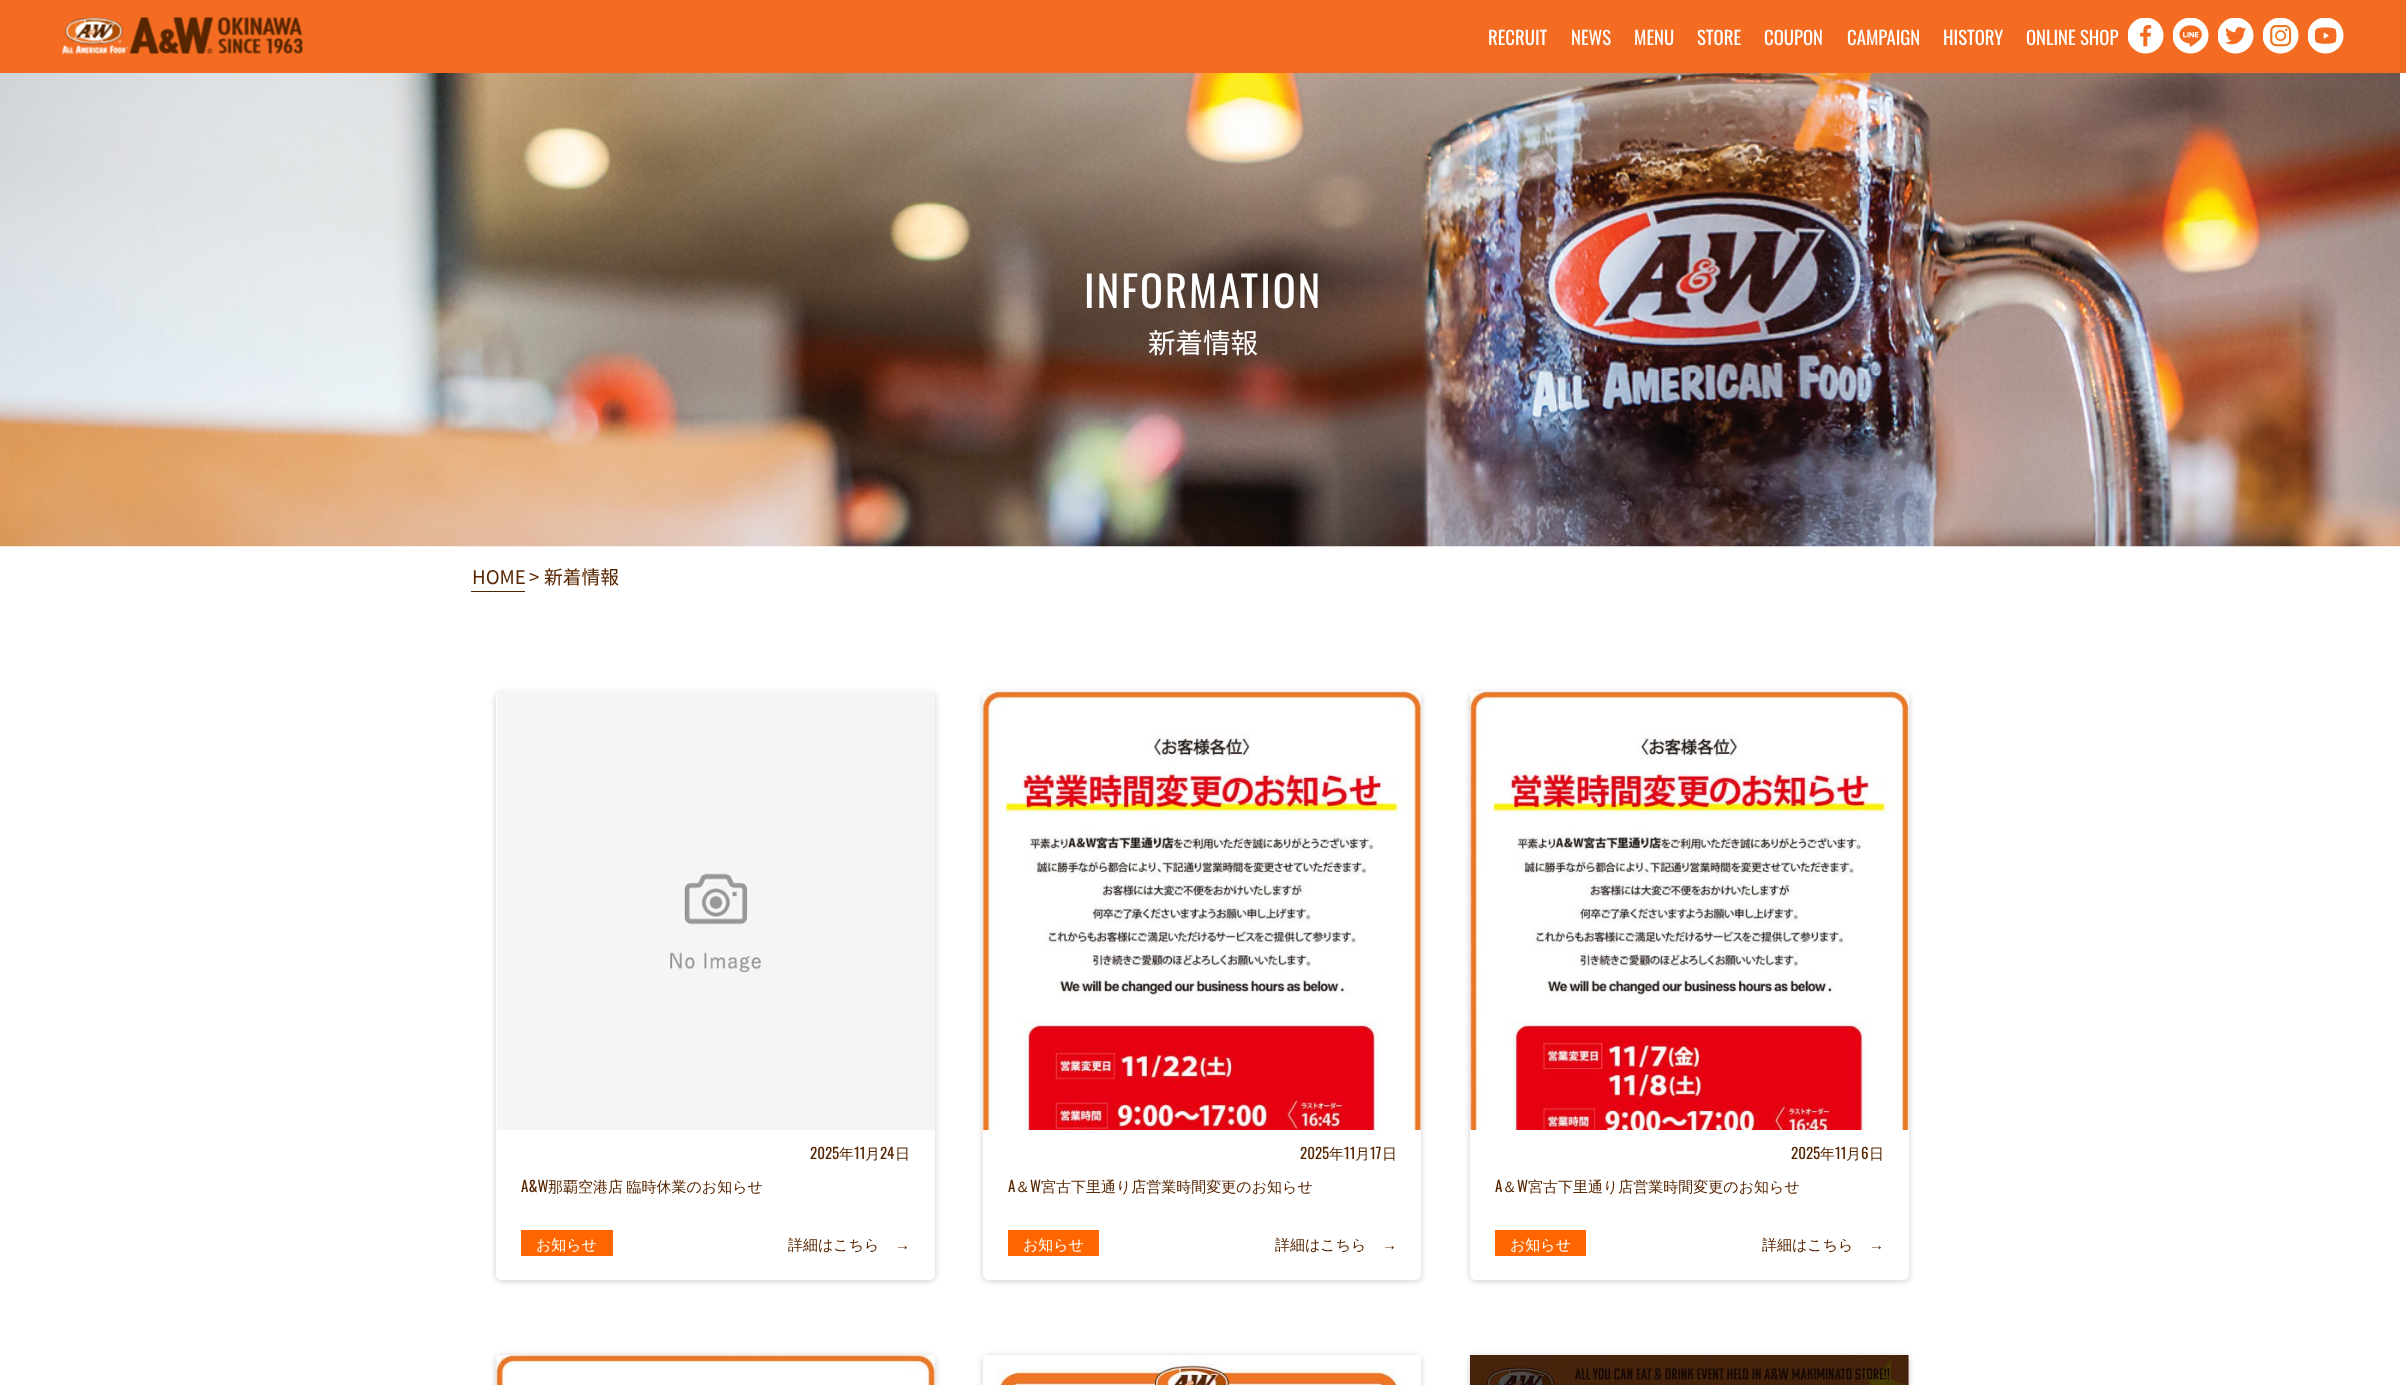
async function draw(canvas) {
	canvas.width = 2406;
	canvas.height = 1385;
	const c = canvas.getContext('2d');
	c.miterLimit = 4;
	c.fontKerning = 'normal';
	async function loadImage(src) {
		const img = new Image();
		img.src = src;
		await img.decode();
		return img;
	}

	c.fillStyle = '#fff';
	c.fillRect(0, 0, 2406, 1385);
	c.fillStyle = '#f36c21';
	c.fillRect(0, 0, 2406, 73);
	c.drawImage(await loadImage('img1.png'), 62, 17, 241, 37);
	c.font = '18.75px Oswald';
	c.fillStyle = '#fff';
	for (const [text, x, y] of [
		['RECRUIT', 1488, 45],
		['NEWS', 1571, 45],
		['MENU', 1634, 45],
		['STORE', 1697, 45],
		['COUPON', 1764, 45],
		['CAMPAIGN', 1847, 45],
		['HISTORY', 1943, 45],
		['ONLINE SHOP', 2026, 45],
	]) {
		c.fillText(text, x, y);
	}
	c.drawImage(await loadImage('img2.png'), 2128, 18, 36, 36);
	c.drawImage(await loadImage('img3.png'), 2173, 18, 36, 36);
	c.drawImage(await loadImage('img4.png'), 2218, 18, 36, 36);
	c.drawImage(await loadImage('img5.png'), 2263, 18, 36, 36);
	c.drawImage(await loadImage('img6.png'), 2308, 18, 36, 36);
	c.drawImage(await loadImage('img7.png'), 0, 73, 2400, 474);
	c.letterSpacing = '2.1px';
	c.font = '42.5px Oswald';
	c.fillText('INFORMATION', 1084, 308);
	c.letterSpacing = '0px';
	c.font = '27.5px Noto Sans JP';
	c.fillText('新着情報', 1148, 353);
	c.font = '18.75px Noto Sans JP';
	c.fillStyle = '#572500';
	c.fillText('HOME', 472, 584);
	c.fillText('>', 529, 584);
	c.fillStyle = '#4f2400';
	c.fillRect(471, 591, 54, 1);
	c.fillStyle = '#572500';
	c.fillText('新着情報', 544, 584);
	c.save();
	c.beginPath();
	c.moveTo(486, 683);
	c.lineTo(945, 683);
	c.lineTo(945, 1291);
	c.lineTo(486, 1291);
	c.closePath();
	c.moveTo(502, 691);
	c.lineTo(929, 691);
	c.bezierCurveTo(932.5, 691, 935, 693.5, 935, 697);
	c.lineTo(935, 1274);
	c.bezierCurveTo(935, 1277.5, 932.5, 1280, 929, 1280);
	c.lineTo(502, 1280);
	c.bezierCurveTo(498.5, 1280, 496, 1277.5, 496, 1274);
	c.lineTo(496, 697);
	c.bezierCurveTo(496, 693.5, 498.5, 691, 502, 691);
	c.closePath();
	c.clip('evenodd');
	c.fillStyle = '#00000033';
	c.filter = 'blur(3px)';
	c.beginPath();
	c.roundRect(496, 693, 439, 588, 6);
	c.fill();
	c.filter = 'none';
	c.restore();
	c.drawImage(await loadImage('img8.png'), 497, 691, 438, 439);
	c.font = '15px Oswald';
	c.fillText('2025', 810, 1159);
	c.font = '500 15px WenQuanYi Zen Hei';
	c.fillText('年', 839, 1159);
	c.font = '15px Oswald';
	c.fillText('11', 854, 1159);
	c.font = '500 15px WenQuanYi Zen Hei';
	c.fillText('月', 865, 1159);
	c.font = '15px Oswald';
	c.fillText('24', 880, 1159);
	c.font = '500 15px WenQuanYi Zen Hei';
	c.fillText('日', 895, 1159);
	c.font = '15px Oswald';
	c.fillText('A&W', 521, 1192);
	c.wordSpacing = '-1px';
	c.font = '500 15px WenQuanYi Zen Hei';
	c.fillText('那覇空港店 臨時休業のお知らせ', 548, 1192);
	c.fillStyle = '#f60';
	c.fillRect(521, 1230, 92, 26);
	c.wordSpacing = '0px';
	c.fillStyle = '#fff';
	c.fillText('お知らせ', 536, 1250);
	c.fillStyle = '#572500';
	c.fillText('詳細はこちら', 788, 1250);
	c.font = '15px Liberation Sans';
	c.fillText('→', 895, 1250);
	c.save();
	c.beginPath();
	c.moveTo(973, 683);
	c.lineTo(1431, 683);
	c.lineTo(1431, 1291);
	c.lineTo(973, 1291);
	c.closePath();
	c.moveTo(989, 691);
	c.lineTo(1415, 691);
	c.bezierCurveTo(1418.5, 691, 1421, 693.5, 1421, 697);
	c.lineTo(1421, 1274);
	c.bezierCurveTo(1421, 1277.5, 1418.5, 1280, 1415, 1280);
	c.lineTo(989, 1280);
	c.bezierCurveTo(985.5, 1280, 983, 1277.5, 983, 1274);
	c.lineTo(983, 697);
	c.bezierCurveTo(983, 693.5, 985.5, 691, 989, 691);
	c.closePath();
	c.clip('evenodd');
	c.fillStyle = '#00000033';
	c.filter = 'blur(3px)';
	c.beginPath();
	c.roundRect(983, 693, 438, 588, 6);
	c.fill();
	c.filter = 'none';
	c.restore();
	c.drawImage(await loadImage('img9.png'), 982, 691, 439, 439);
	c.font = '15px Oswald';
	c.fillText('2025', 1300, 1159);
	c.font = '500 15px WenQuanYi Zen Hei';
	c.fillText('年', 1329, 1159);
	c.font = '15px Oswald';
	c.fillText('11', 1344, 1159);
	c.font = '500 15px WenQuanYi Zen Hei';
	c.fillText('月', 1355, 1159);
	c.font = '15px Oswald';
	c.fillText('17', 1370, 1159);
	c.font = '500 15px WenQuanYi Zen Hei';
	c.fillText('日', 1382, 1159);
	c.font = '15px Oswald';
	c.fillText('A', 1008, 1192);
	c.font = '500 15px WenQuanYi Zen Hei';
	c.fillText('＆', 1015, 1192);
	c.font = '15px Oswald';
	c.fillText('W', 1030, 1192);
	c.font = '500 15px WenQuanYi Zen Hei';
	c.fillText('宮古下里通り店営業時間変更のお知らせ', 1041, 1192);
	c.fillStyle = '#f60';
	c.fillRect(1008, 1230, 91, 26);
	c.fillStyle = '#fff';
	c.fillText('お知らせ', 1023, 1250);
	c.fillStyle = '#572500';
	c.fillText('詳細はこちら', 1275, 1250);
	c.font = '15px Liberation Sans';
	c.fillText('→', 1382, 1250);
	c.save();
	c.beginPath();
	c.moveTo(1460, 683);
	c.lineTo(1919, 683);
	c.lineTo(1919, 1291);
	c.lineTo(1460, 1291);
	c.closePath();
	c.moveTo(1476, 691);
	c.lineTo(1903, 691);
	c.bezierCurveTo(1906.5, 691, 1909, 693.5, 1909, 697);
	c.lineTo(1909, 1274);
	c.bezierCurveTo(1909, 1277.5, 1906.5, 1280, 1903, 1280);
	c.lineTo(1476, 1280);
	c.bezierCurveTo(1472.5, 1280, 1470, 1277.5, 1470, 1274);
	c.lineTo(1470, 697);
	c.bezierCurveTo(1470, 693.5, 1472.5, 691, 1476, 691);
	c.closePath();
	c.clip('evenodd');
	c.fillStyle = '#00000033';
	c.filter = 'blur(3px)';
	c.beginPath();
	c.roundRect(1470, 693, 439, 588, 6);
	c.fill();
	c.filter = 'none';
	c.restore();
	c.drawImage(await loadImage('img10.png'), 1470, 691, 439, 439);
	c.font = '15px Oswald';
	c.fillText('2025', 1791, 1159);
	c.font = '500 15px WenQuanYi Zen Hei';
	c.fillText('年', 1820, 1159);
	c.font = '15px Oswald';
	c.fillText('11', 1835, 1159);
	c.font = '500 15px WenQuanYi Zen Hei';
	c.fillText('月', 1846, 1159);
	c.font = '15px Oswald';
	c.fillText('6', 1861, 1159);
	c.font = '500 15px WenQuanYi Zen Hei';
	c.fillText('日', 1869, 1159);
	c.font = '15px Oswald';
	c.fillText('A', 1495, 1192);
	c.font = '500 15px WenQuanYi Zen Hei';
	c.fillText('＆', 1502, 1192);
	c.font = '15px Oswald';
	c.fillText('W', 1517, 1192);
	c.font = '500 15px WenQuanYi Zen Hei';
	c.fillText('宮古下里通り店営業時間変更のお知らせ', 1528, 1192);
	c.fillStyle = '#f60';
	c.fillRect(1495, 1230, 91, 26);
	c.fillStyle = '#fff';
	c.fillText('お知らせ', 1510, 1250);
	c.fillStyle = '#572500';
	c.fillText('詳細はこちら', 1762, 1250);
	c.font = '15px Liberation Sans';
	c.fillText('→', 1869, 1250);
	c.fillStyle = '#00000033';
	c.filter = 'blur(3px)';
	c.beginPath();
	c.roundRect(496, 1356, 439, 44, 6);
	c.fill();
	c.filter = 'none';
	c.drawImage(await loadImage('img11.png'), 496, 1355, 439, 30);
	c.filter = 'blur(3px)';
	c.beginPath();
	c.roundRect(983, 1356, 438, 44, 6);
	c.fill();
	c.filter = 'none';
	c.drawImage(await loadImage('img12.png'), 983, 1355, 438, 30);
	c.filter = 'blur(3px)';
	c.beginPath();
	c.roundRect(1470, 1356, 439, 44, 6);
	c.fill();
	c.filter = 'none';
	c.drawImage(await loadImage('img13.png'), 1470, 1355, 439, 30);
}

draw(document.querySelector('canvas'));
